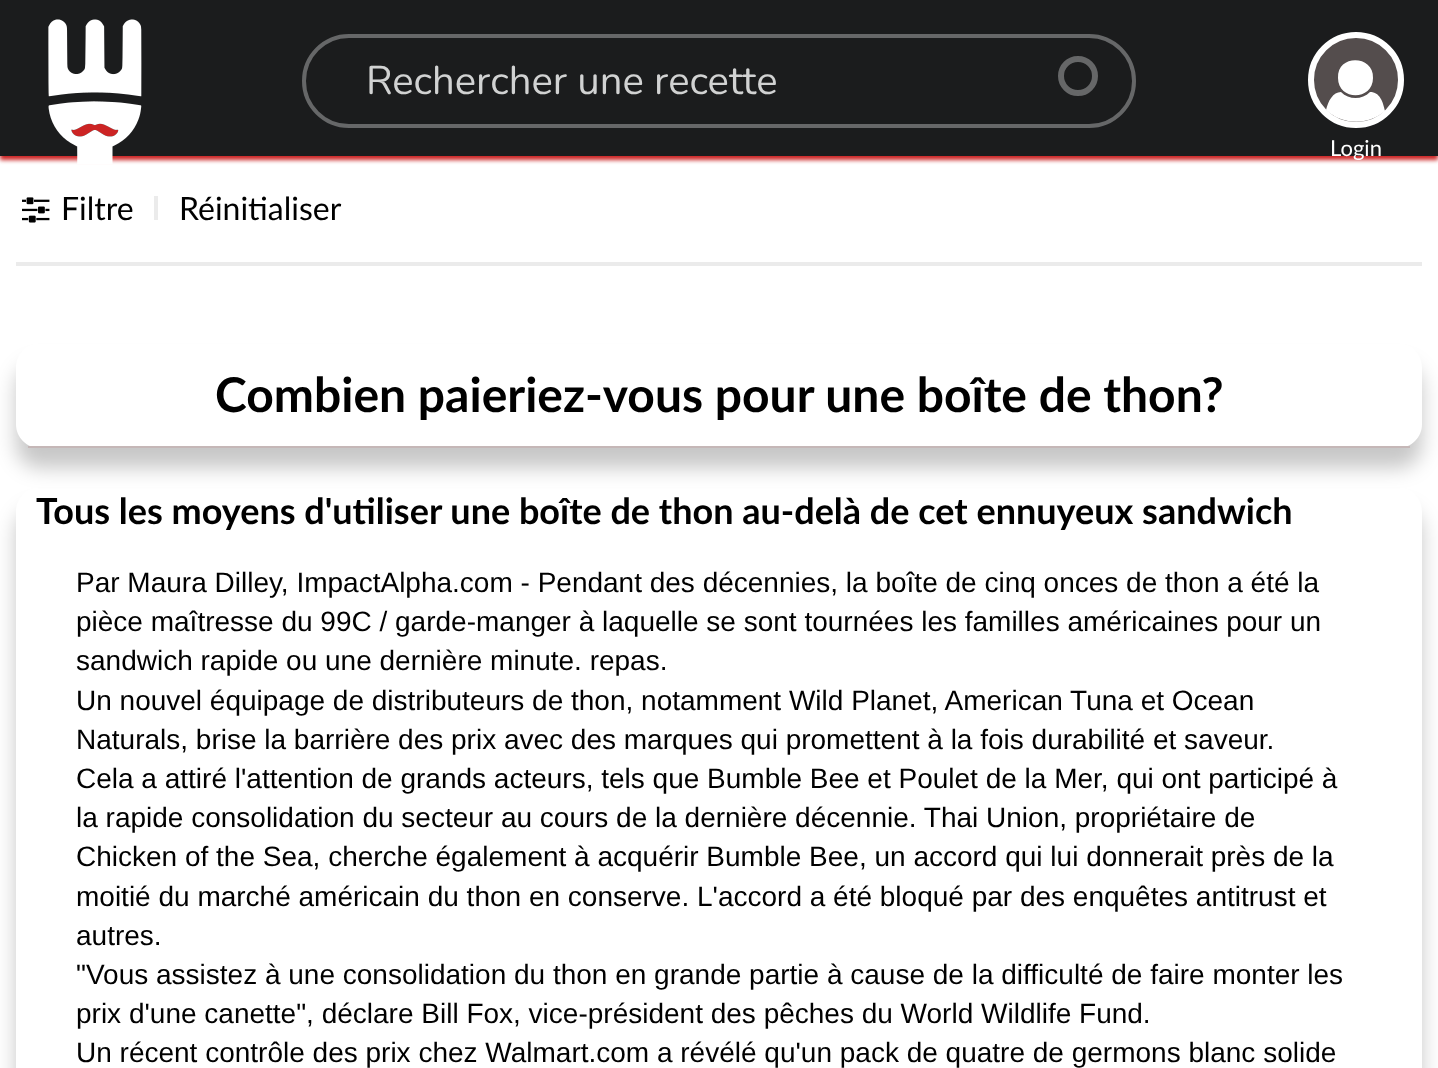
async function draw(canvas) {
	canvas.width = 1438;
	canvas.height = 1068;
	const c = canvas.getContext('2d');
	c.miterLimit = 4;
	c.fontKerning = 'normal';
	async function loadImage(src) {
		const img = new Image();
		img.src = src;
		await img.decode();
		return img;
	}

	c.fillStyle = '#fff';
	c.fillRect(0, 0, 1438, 1068);
	c.fillStyle = '#cc2424';
	c.filter = 'blur(2px)';
	c.beginPath();
	c.rect(0, 4, 1438, 156);
	c.fill();
	c.filter = 'none';
	c.fillStyle = '#1b1c1d';
	c.fillRect(0, 0, 1438, 156);
	c.drawImage(await loadImage('img1.png'), 48, 19, 94, 145);
	c.beginPath();
	c.arc(1078, 76, 17, 0, 2 * Math.PI);
	c.strokeStyle = '#666768';
	c.lineWidth = 6;
	c.stroke();
	c.beginPath();
	c.roundRect(304, 36, 830, 90, 45);
	c.lineWidth = 4;
	c.stroke();
	c.font = '40px Nunito';
	c.fillStyle = '#d1d2d2';
	c.fillText('Rechercher une recette', 366, 94);
	c.fillStyle = '#544d4d';
	c.beginPath();
	c.arc(1356, 80, 45, 0, 2 * Math.PI);
	c.fill();
	c.strokeStyle = '#fff';
	c.lineWidth = 6;
	c.stroke();
	c.fillStyle = '#fff';
	c.beginPath();
	c.moveTo(1385, 111);
	c.bezierCurveTo(1368, 126, 1342, 125, 1326, 110);
	c.bezierCurveTo(1328, 101, 1333, 92, 1341, 92);
	c.bezierCurveTo(1349, 100, 1362, 100, 1370, 92);
	c.bezierCurveTo(1380, 92, 1383, 102, 1385, 111);
	c.closePath();
	c.moveTo(1373, 78);
	c.bezierCurveTo(1374, 55, 1337, 54, 1338, 78);
	c.bezierCurveTo(1338, 101, 1373, 101, 1373, 78);
	c.closePath();
	c.fill('evenodd');
	c.font = '22px Lato';
	c.fillText('Login', 1330, 156);
	c.fillStyle = '#ebebeb';
	c.fillRect(16, 262, 1406, 4);
	c.drawImage(await loadImage('img2.png'), 22, 197, 28, 26);
	c.font = '32px Lato';
	c.fillStyle = '#000';
	c.fillText('Filtre', 61, 220);
	c.fillStyle = '#ebebeb';
	c.fillRect(154, 196, 4, 24);
	c.fillStyle = '#000';
	c.fillText('Réinitialiser', 179, 220);
	c.save();
	c.beginPath();
	c.moveTo(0, 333);
	c.lineTo(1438, 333);
	c.lineTo(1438, 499);
	c.lineTo(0, 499);
	c.closePath();
	c.moveTo(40, 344);
	c.lineTo(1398, 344);
	c.bezierCurveTo(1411.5, 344, 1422, 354.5, 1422, 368);
	c.lineTo(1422, 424);
	c.bezierCurveTo(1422, 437.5, 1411.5, 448, 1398, 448);
	c.lineTo(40, 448);
	c.bezierCurveTo(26.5, 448, 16, 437.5, 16, 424);
	c.lineTo(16, 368);
	c.bezierCurveTo(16, 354.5, 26.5, 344, 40, 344);
	c.closePath();
	c.clip('evenodd');
	c.fillStyle = '#00000038';
	c.filter = 'blur(10px)';
	c.beginPath();
	c.roundRect(16, 364, 1406, 104, 24);
	c.fill();
	c.filter = 'none';
	c.restore();
	c.fillStyle = '#c5b7b7';
	c.fillRect(28, 446, 1382, 2);
	c.font = 'bold 48px Lato';
	c.fillStyle = '#000';
	c.fillText('Combien paieriez-vous pour une boîte de thon?', 215, 412);
	c.save();
	c.beginPath();
	c.moveTo(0, 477);
	c.lineTo(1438, 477);
	c.lineTo(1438, 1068);
	c.lineTo(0, 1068);
	c.closePath();
	c.moveTo(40, 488);
	c.lineTo(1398, 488);
	c.bezierCurveTo(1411.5, 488, 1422, 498.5, 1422, 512);
	c.lineTo(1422, 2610);
	c.bezierCurveTo(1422, 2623.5, 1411.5, 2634, 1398, 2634);
	c.lineTo(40, 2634);
	c.bezierCurveTo(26.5, 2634, 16, 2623.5, 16, 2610);
	c.lineTo(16, 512);
	c.bezierCurveTo(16, 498.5, 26.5, 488, 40, 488);
	c.closePath();
	c.clip('evenodd');
	c.fillStyle = '#00000038';
	c.filter = 'blur(10px)';
	c.beginPath();
	c.roundRect(16, 508, 1406, 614, 24);
	c.fill();
	c.filter = 'none';
	c.restore();
	c.font = 'bold 36px Lato';
	c.fillText('Tous les moyens d\'utiliser une boîte de thon au-delà de cet ennuyeux sandwich', 36, 524);
	c.font = '28px Liberation Sans';
	for (const [text, x, y] of [
		['Par Maura Dilley, ImpactAlpha.com - Pendant des décennies, la boîte de cinq onces de thon a été la', 76, 592],
		['pièce maîtresse du 99C / garde-manger à laquelle se sont tournées les familles américaines pour un', 76, 631],
		['sandwich rapide ou une dernière minute. repas.', 76, 670],
		['Un nouvel équipage de distributeurs de thon, notamment Wild Planet, American Tuna et Ocean', 76, 710],
		['Naturals, brise la barrière des prix avec des marques qui promettent à la fois durabilité et saveur.', 76, 749],
		['Cela a attiré l\'attention de grands acteurs, tels que Bumble Bee et Poulet de la Mer, qui ont participé à', 76, 788],
		['la rapide consolidation du secteur au cours de la dernière décennie. Thai Union, propriétaire de', 76, 827],
		['Chicken of the Sea, cherche également à acquérir Bumble Bee, un accord qui lui donnerait près de la', 76, 866],
		['moitié du marché américain du thon en conserve. L\'accord a été bloqué par des enquêtes antitrust et', 76, 906],
		['autres.', 76, 945],
		['"Vous assistez à une consolidation du thon en grande partie à cause de la difficulté de faire monter les', 76, 984],
		['prix d\'une canette", déclare Bill Fox, vice-président des pêches du World Wildlife Fund.', 76, 1023],
		['Un récent contrôle des prix chez Walmart.com a révélé qu\'un pack de quatre de germons blanc solide', 76, 1062],
	]) {
		c.fillText(text, x, y);
	}
}

draw(document.querySelector('canvas'));
